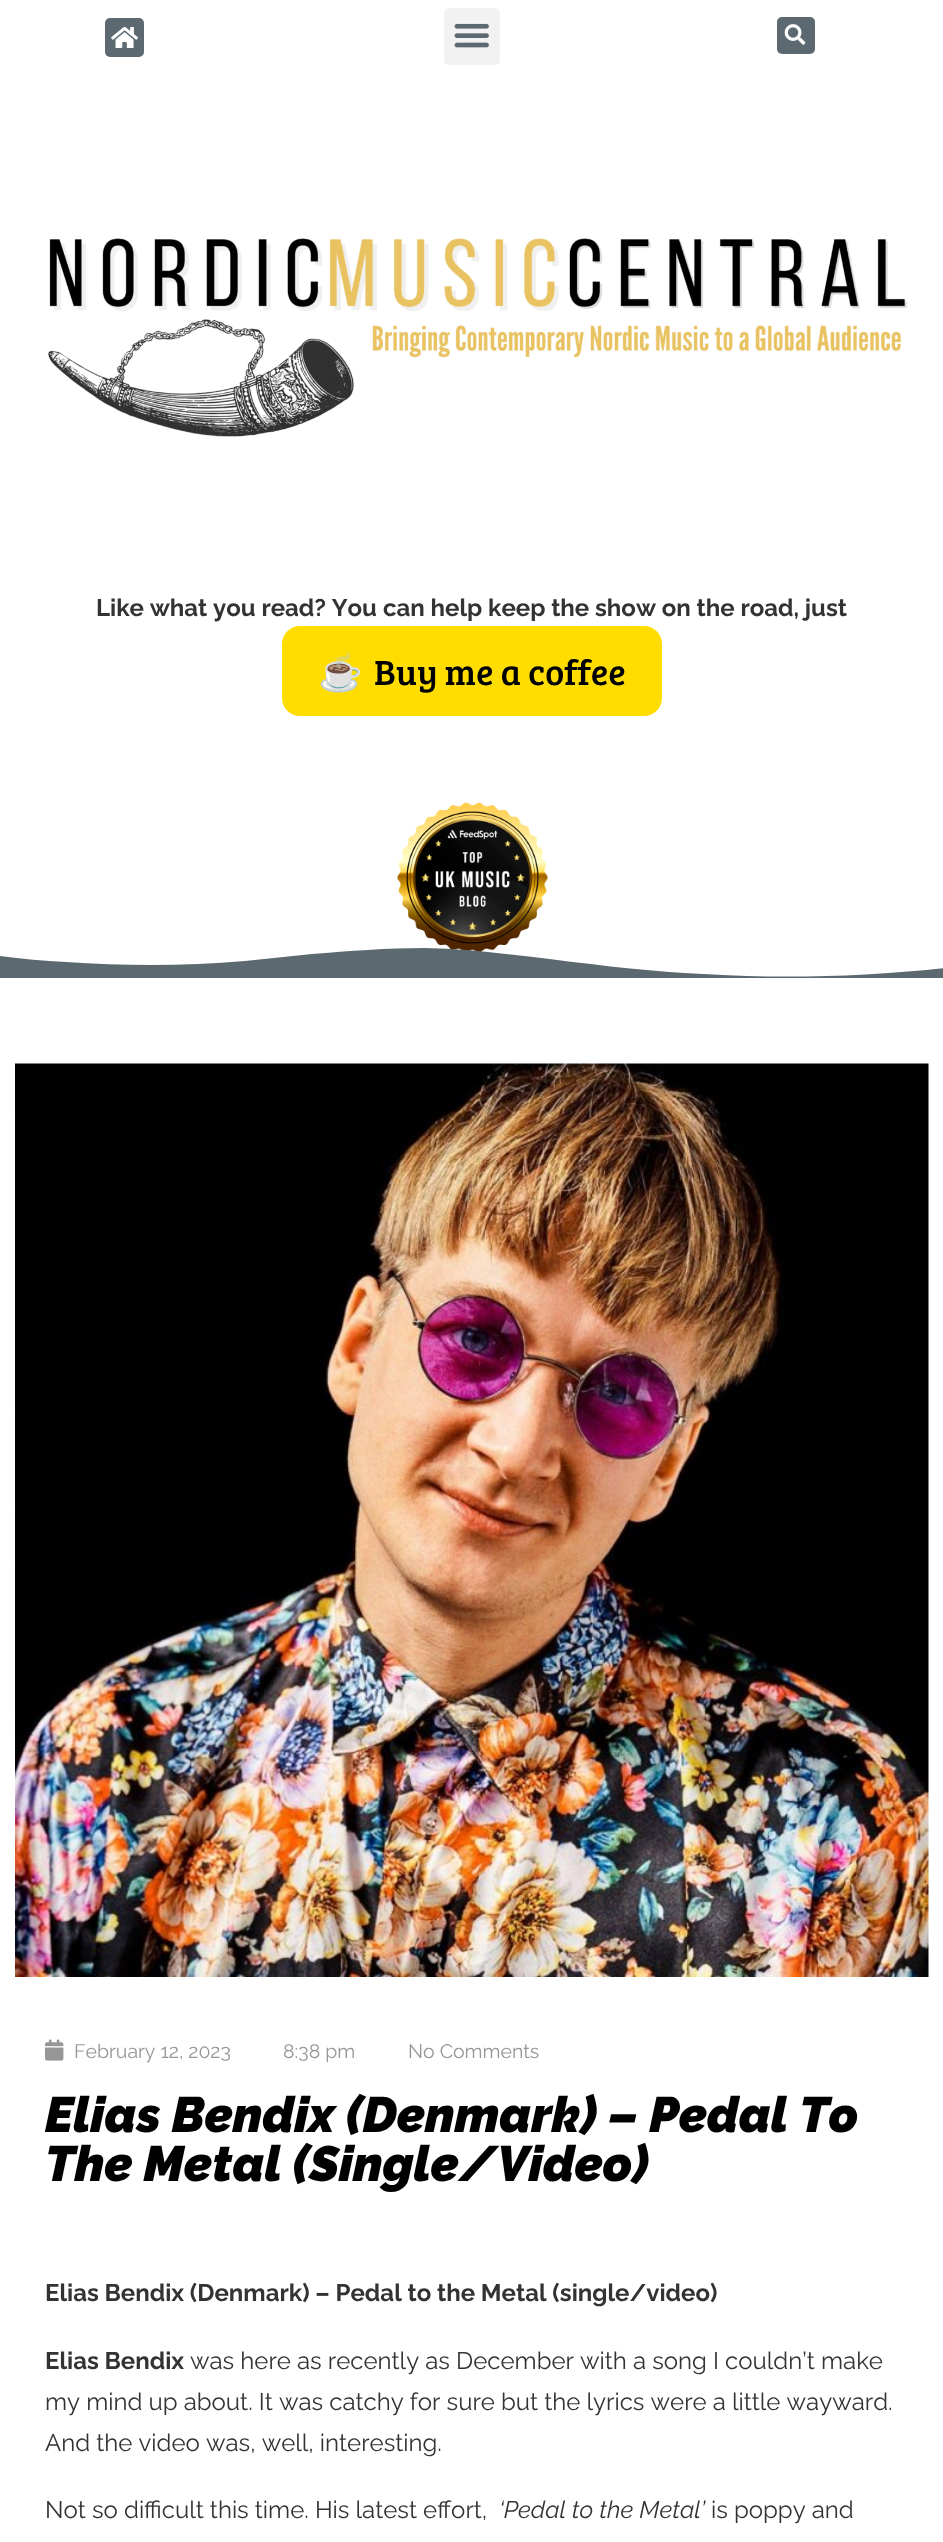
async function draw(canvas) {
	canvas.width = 943;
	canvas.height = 2542;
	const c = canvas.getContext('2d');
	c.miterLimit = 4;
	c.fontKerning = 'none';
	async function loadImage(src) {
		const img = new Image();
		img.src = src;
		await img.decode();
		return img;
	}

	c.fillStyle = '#fff';
	c.fillRect(0, 0, 943, 2542);
	c.fillStyle = '#5c6971';
	c.beginPath();
	c.roundRect(105, 18, 39, 39, 5);
	c.fill();
	c.drawImage(await loadImage('img1.png'), 111, 27, 27, 21);
	c.fillStyle = '#f2f2f2';
	c.beginPath();
	c.roundRect(444, 8, 56, 57, 5);
	c.fill();
	c.drawImage(await loadImage('img2.png'), 454, 23, 35, 25);
	c.fillStyle = '#5c6971';
	c.beginPath();
	c.roundRect(777, 17, 38, 37, 5);
	c.fill();
	c.drawImage(await loadImage('img3.png'), 784, 24, 22, 21);
	c.drawImage(await loadImage('img4.png'), 48, 238, 859, 199);
	c.font = 'bold 24px Raleway';
	c.fillStyle = '#333';
	c.fillText('Like what you read? You', 96, 616);
	c.fillText('can help keep the show on the road, just', 383, 616);
	c.fillStyle = '#fd0';
	c.beginPath();
	c.roundRect(282, 626, 380, 90, 18);
	c.fill();
	c.font = '36px Noto Color Emoji';
	c.fillStyle = '#000';
	c.fillText('☕', 318, 685);
	c.font = '36px Bree Serif';
	c.fillText('Buy me a coffee', 374, 685);
	c.drawImage(await loadImage('img5.png'), 397, 802, 151, 150);
	c.fillStyle = '#5c6971';
	c.beginPath();
	c.moveTo(747, 976);
	c.bezierCurveTo(695, 974, 643, 971, 591, 964);
	c.bezierCurveTo(536, 958, 481, 949, 425, 948);
	c.bezierCurveTo(387, 948, 349, 951, 312, 954);
	c.lineTo(245, 961);
	c.bezierCurveTo(186, 966, 126, 966, 66, 962);
	c.bezierCurveTo(44, 961, 22, 959, 0, 956);
	c.lineTo(0, 978);
	c.lineTo(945, 978);
	c.lineTo(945, 968);
	c.bezierCurveTo(880, 975, 813, 978, 747, 976);
	c.closePath();
	c.fill();
	c.drawImage(await loadImage('img6.png'), 15, 1063, 914, 914);
	c.drawImage(await loadImage('img7.png'), 45, 2039, 19, 22);
	c.font = '19.5px Raleway';
	c.fillStyle = '#969696';
	for (const [text, x, y] of [
		['February 12, 2023', 74, 2058],
		['8:38 pm', 283, 2058],
		['No Comments', 408, 2058],
	]) {
		c.fillText(text, x, y);
	}
	c.font = 'italic 900 49.5px Raleway';
	c.fillStyle = '#000';
	c.fillText('Elias Bendix (Denmark) – Pedal To', 45, 2132);
	c.fillText('The Metal (Single/Video)', 45, 2181);
	c.font = 'bold 24px Raleway';
	c.fillStyle = '#333';
	c.fillText('Elias Bendix (Denmark) – Pedal to the Metal (single/video)', 45, 2301);
	c.fillText('Elias Bendix', 45, 2369);
	c.font = '24px Raleway';
	for (const [text, x, y] of [
		['was here as recently as December with a song I couldn’t', 190, 2369],
		['make', 821, 2369],
		['my mind up about. It was catchy for sure', 45, 2410],
		['but the lyrics were a little wayward.', 501, 2410],
		['And the video was, well, interesting.', 45, 2451],
		['Not so difficult this time. His latest effort,', 45, 2518],
	]) {
		c.fillText(text, x, y);
	}
	c.font = 'italic 24px Raleway';
	c.fillText('‘Pedal to the Metal’', 499, 2518);
	c.font = '24px Raleway';
	c.fillText('is poppy and', 711, 2518);
}

draw(document.querySelector('canvas'));
